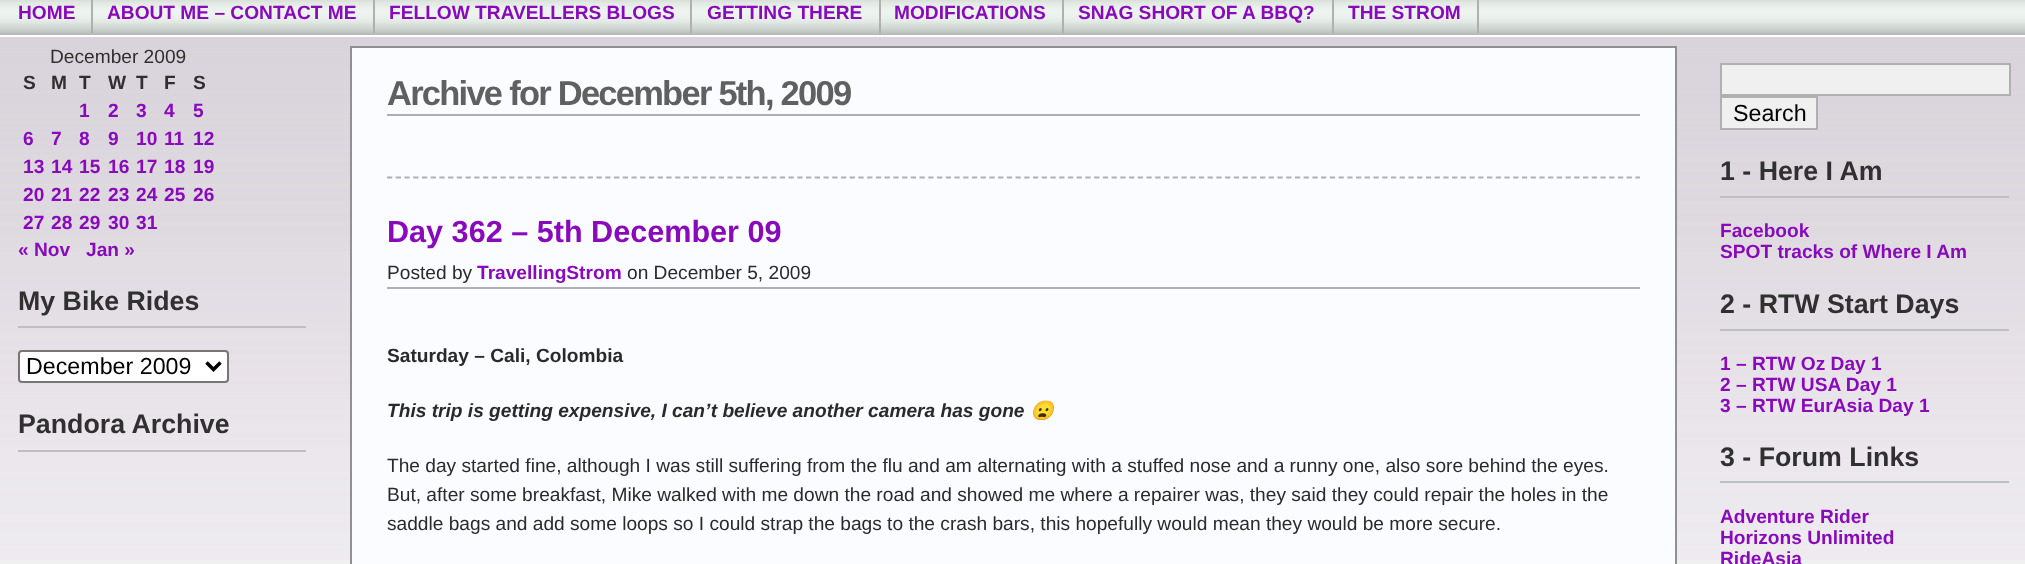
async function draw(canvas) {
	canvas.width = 2025;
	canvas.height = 564;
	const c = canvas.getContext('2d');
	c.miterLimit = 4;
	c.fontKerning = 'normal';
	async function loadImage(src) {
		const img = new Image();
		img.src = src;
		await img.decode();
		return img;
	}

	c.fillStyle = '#f0f0f0';
	c.fillRect(0, 0, 2025, 564);
	c.drawImage(await loadImage('img1.png'), 0, 37, 2025, 523);
	c.fillStyle = '#b0b0b0';
	c.fillRect(0, 34, 2025, 1);
	c.drawImage(await loadImage('img2.png'), 0, 0, 2025, 35);
	c.fillStyle = '#fff';
	c.fillRect(0, 35, 2025, 2);
	c.font = 'bold 19.15px Liberation Sans';
	c.fillStyle = '#890abb';
	c.fillText('HOME', 18, 19);
	c.fillStyle = '#b0b0b0';
	c.fillRect(91, 0, 2, 33);
	c.fillStyle = '#890abb';
	c.fillText('ABOUT ME – CONTACT ME', 107, 19);
	c.fillStyle = '#b0b0b0';
	c.fillRect(373, 0, 2, 33);
	c.fillStyle = '#890abb';
	c.fillText('FELLOW TRAVELLERS BLOGS', 389, 19);
	c.fillStyle = '#b0b0b0';
	c.fillRect(690, 0, 2, 33);
	c.fillStyle = '#890abb';
	c.fillText('GETTING THERE', 707, 19);
	c.fillStyle = '#b0b0b0';
	c.fillRect(879, 0, 2, 33);
	c.fillStyle = '#890abb';
	c.fillText('MODIFICATIONS', 894, 19);
	c.fillStyle = '#b0b0b0';
	c.fillRect(1062, 0, 2, 33);
	c.fillStyle = '#890abb';
	c.fillText('SNAG SHORT OF A BBQ?', 1078, 19);
	c.fillStyle = '#b0b0b0';
	c.fillRect(1332, 0, 2, 33);
	c.fillStyle = '#890abb';
	c.fillText('THE STROM', 1348, 19);
	c.fillStyle = '#b0b0b0';
	c.fillRect(1477, 0, 2, 33);
	c.font = '19.15px Liberation Sans';
	c.fillStyle = '#303030';
	c.fillText('December 2009', 50, 63);
	c.font = 'bold 19.15px Liberation Sans';
	for (const [text, x, y] of [
		['S', 23, 89],
		['M', 51, 89],
		['T', 79, 89],
		['W', 108, 89],
		['T', 136, 89],
		['F', 164, 89],
		['S', 193, 89],
	]) {
		c.fillText(text, x, y);
	}
	c.fillStyle = '#890abb';
	for (const [text, x, y] of [
		['1', 79, 117],
		['2', 108, 117],
		['3', 136, 117],
		['4', 164, 117],
		['5', 193, 117],
		['6', 23, 145],
		['7', 51, 145],
		['8', 79, 145],
		['9', 108, 145],
		['10', 136, 145],
		['11', 164, 145],
		['12', 193, 145],
		['13', 23, 173],
		['14', 51, 173],
		['15', 79, 173],
		['16', 108, 173],
		['17', 136, 173],
		['18', 164, 173],
		['19', 193, 173],
		['20', 23, 201],
		['21', 51, 201],
		['22', 79, 201],
		['23', 108, 201],
		['24', 136, 201],
		['25', 164, 201],
		['26', 193, 201],
		['27', 23, 229],
		['28', 51, 229],
		['29', 79, 229],
		['30', 108, 229],
		['31', 136, 229],
		['« Nov', 18, 256],
		['Jan »', 86, 256],
	]) {
		c.fillText(text, x, y);
	}
	c.fillStyle = '#bebfc3';
	c.fillRect(18, 326, 288, 2);
	c.font = 'bold 26.75px Liberation Sans';
	c.fillStyle = '#303030';
	c.fillText('My Bike Rides', 18, 310);
	c.fillStyle = '#fff';
	c.beginPath();
	c.roundRect(19, 351, 209, 31, 3);
	c.fill();
	c.strokeStyle = '#767676';
	c.lineWidth = 2;
	c.stroke();
	c.beginPath();
	c.moveTo(206.5, 362.5);
	c.lineTo(213.5, 369.5);
	c.lineTo(220.5, 362.5);
	c.strokeStyle = '#000';
	c.lineWidth = 3.5;
	c.stroke();
	c.font = '23.25px Liberation Sans';
	c.fillStyle = '#000';
	c.fillText('December 2009', 26, 374);
	c.fillStyle = '#bebfc3';
	c.fillRect(18, 450, 288, 2);
	c.font = 'bold 26.75px Liberation Sans';
	c.fillStyle = '#303030';
	c.fillText('Pandora Archive', 18, 433);
	c.fillStyle = '#fafcff';
	c.beginPath();
	c.rect(351, 47, 1325, 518);
	c.fill();
	c.strokeStyle = '#909090';
	c.lineWidth = 2;
	c.stroke();
	c.fillStyle = '#b0b0b0';
	c.fillRect(387, 114, 1253, 2);
	c.letterSpacing = '-1.75px';
	c.font = 'bold 34.5px Liberation Sans';
	c.fillStyle = '#606060';
	c.fillText('Archive for December 5th, 2009', 387, 105);
	c.beginPath();
	c.moveTo(387, 177.5);
	c.lineTo(1640, 177.5);
	c.strokeStyle = '#b0b0b0';
	c.lineWidth = 1.8;
	c.setLineDash([5.25, 3.48]);
	c.stroke();
	c.letterSpacing = '0px';
	c.font = 'bold 30.6px Liberation Sans';
	c.fillStyle = '#890abb';
	c.fillText('Day 362 – 5th December 09', 387, 242);
	c.fillStyle = '#b0b0b0';
	c.fillRect(387, 287, 1253, 2);
	c.font = '19.15px Liberation Sans';
	c.fillStyle = '#2a2a2a';
	c.fillText('Posted by', 387, 279);
	c.font = 'bold 19.15px Liberation Sans';
	c.fillStyle = '#890abb';
	c.fillText('TravellingStrom', 477, 279);
	c.font = '19.15px Liberation Sans';
	c.fillStyle = '#2a2a2a';
	c.fillText('on December 5, 2009', 627, 279);
	c.font = 'bold 19.15px Liberation Sans';
	c.fillText('Saturday – Cali, Colombia', 387, 362);
	c.font = 'italic bold 19.15px Liberation Sans';
	c.fillText('This trip is getting expensive, I can’t believe another camera has gone', 387, 417);
	c.font = 'italic bold 19.15px Noto Color Emoji';
	c.fillText('😦', 1030, 417);
	c.font = '19.15px Liberation Sans';
	for (const [text, x, y] of [
		['The day started fine, although I was still suffering from the flu and am alternating with a stuffed nose and a runny one, also sore behind the eyes.', 387, 472],
		['But, after some breakfast, Mike walked with me down the road and showed me where a repairer was, they said they could repair the holes in the', 387, 501],
		['saddle bags and add some loops so I could strap the bags to the crash bars, this hopefully would mean they would be more secure.', 387, 530],
	]) {
		c.fillText(text, x, y);
	}
	c.fillStyle = '#f0f0f0';
	c.beginPath();
	c.rect(1721, 64, 289, 31);
	c.fill();
	c.lineWidth = 2;
	c.setLineDash([]);
	c.stroke();
	c.beginPath();
	c.rect(1721, 97, 96, 32);
	c.fill();
	c.stroke();
	c.font = '23.25px Liberation Sans';
	c.fillStyle = '#000';
	c.fillText('Search', 1733, 121);
	c.fillStyle = '#bebfc3';
	c.fillRect(1720, 196, 289, 2);
	c.font = 'bold 26.75px Liberation Sans';
	c.fillStyle = '#303030';
	c.fillText('1 - Here I Am', 1720, 180);
	c.font = 'bold 19.15px Liberation Sans';
	c.fillStyle = '#890abb';
	c.fillText('Facebook', 1720, 237);
	c.fillText('SPOT tracks of Where I Am', 1720, 258);
	c.fillStyle = '#bebfc3';
	c.fillRect(1720, 329, 289, 2);
	c.font = 'bold 26.75px Liberation Sans';
	c.fillStyle = '#303030';
	c.fillText('2 - RTW Start Days', 1720, 313);
	c.font = 'bold 19.15px Liberation Sans';
	c.fillStyle = '#890abb';
	for (const [text, x, y] of [
		['1 – RTW Oz Day 1', 1720, 370],
		['2 – RTW USA Day 1', 1720, 391],
		['3 – RTW EurAsia Day 1', 1720, 412],
	]) {
		c.fillText(text, x, y);
	}
	c.fillStyle = '#bebfc3';
	c.fillRect(1720, 481, 289, 2);
	c.font = 'bold 26.75px Liberation Sans';
	c.fillStyle = '#303030';
	c.fillText('3 - Forum Links', 1720, 466);
	c.font = 'bold 19.15px Liberation Sans';
	c.fillStyle = '#890abb';
	for (const [text, x, y] of [
		['Adventure Rider', 1720, 523],
		['Horizons Unlimited', 1720, 544],
		['RideAsia', 1720, 565],
	]) {
		c.fillText(text, x, y);
	}
}

draw(document.querySelector('canvas'));
